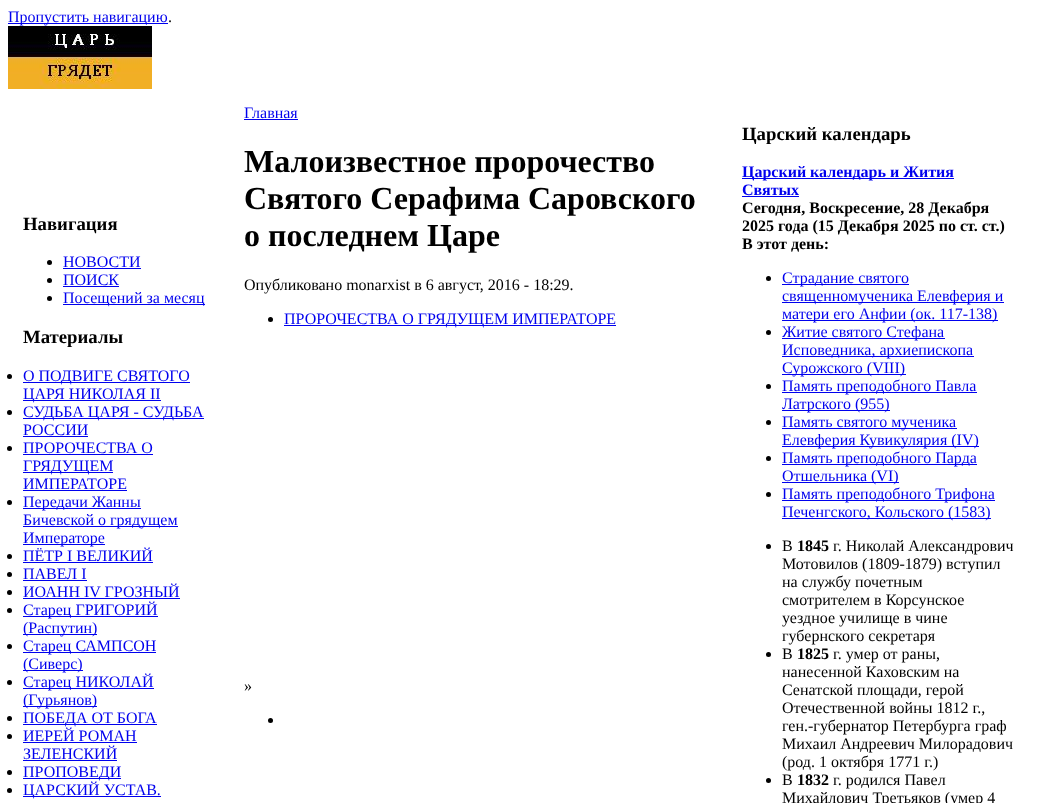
async function draw(canvas) {
	canvas.width = 1037;
	canvas.height = 803;
	const c = canvas.getContext('2d');
	c.miterLimit = 4;
	c.fontKerning = 'normal';
	async function loadImage(src) {
		const img = new Image();
		img.src = src;
		await img.decode();
		return img;
	}

	c.fillStyle = '#fff';
	c.fillRect(0, 0, 1037, 803);
	c.fillStyle = '#00e';
	c.fillRect(8, 23, 160, 1);
	c.font = '16px Liberation Serif';
	c.fillText('Пропустить навигацию', 8, 22);
	c.fillStyle = '#000';
	c.fillText('.', 168, 22);
	c.drawImage(await loadImage('img1.png'), 8, 26, 144, 63);
	c.font = 'bold 18.75px Liberation Serif';
	c.fillText('Навигация', 23, 230);
	c.beginPath();
	c.arc(49.5, 262.5, 2.5, 0, 2 * Math.PI);
	c.fill();
	c.font = '16px Liberation Serif';
	c.fillStyle = '#00e';
	c.fillText('НОВОСТИ', 63, 267);
	c.fillRect(63, 268, 78, 1);
	c.fillStyle = '#000';
	c.beginPath();
	c.arc(49.5, 280.5, 2.5, 0, 2 * Math.PI);
	c.fill();
	c.fillStyle = '#00e';
	c.fillText('ПОИСК', 63, 285);
	c.fillRect(63, 286, 56, 1);
	c.fillStyle = '#000';
	c.beginPath();
	c.arc(49.5, 298.5, 2.5, 0, 2 * Math.PI);
	c.fill();
	c.fillStyle = '#00e';
	c.fillRect(63, 304, 142, 1);
	c.fillText('Посещений за месяц', 63, 303);
	c.font = 'bold 18.75px Liberation Serif';
	c.fillStyle = '#000';
	c.fillText('Материалы', 23, 343);
	c.beginPath();
	c.arc(9.5, 376.5, 2.5, 0, 2 * Math.PI);
	c.fill();
	c.fillStyle = '#00e';
	c.fillRect(23, 382, 167, 1);
	c.font = '16px Liberation Serif';
	c.fillText('О ПОДВИГЕ СВЯТОГО', 23, 381);
	c.fillRect(23, 400, 138, 1);
	c.fillText('ЦАРЯ НИКОЛАЯ II', 23, 399);
	c.fillStyle = '#000';
	c.beginPath();
	c.arc(9.5, 412.5, 2.5, 0, 2 * Math.PI);
	c.fill();
	c.fillStyle = '#00e';
	c.fillRect(23, 418, 181, 1);
	c.fillText('СУДЬБА ЦАРЯ - СУДЬБА', 23, 417);
	c.fillText('РОССИИ', 23, 435);
	c.fillRect(23, 436, 65, 1);
	c.fillStyle = '#000';
	c.beginPath();
	c.arc(9.5, 448.5, 2.5, 0, 2 * Math.PI);
	c.fill();
	c.fillStyle = '#00e';
	c.fillText('ПРОРОЧЕСТВА О', 23, 453);
	c.fillRect(23, 454, 130, 1);
	c.fillRect(23, 472, 90, 1);
	c.fillText('ГРЯДУЩЕМ', 23, 471);
	c.fillText('ИМПЕРАТОРЕ', 23, 489);
	c.fillRect(23, 490, 104, 1);
	c.fillStyle = '#000';
	c.beginPath();
	c.arc(9.5, 502.5, 2.5, 0, 2 * Math.PI);
	c.fill();
	c.fillStyle = '#00e';
	c.fillRect(23, 508, 118, 1);
	c.fillText('Передачи Жанны', 23, 507);
	c.fillRect(23, 526, 155, 1);
	c.fillText('Бичевской о грядущем', 23, 525);
	c.fillRect(23, 544, 82, 1);
	c.fillText('Императоре', 23, 543);
	c.fillStyle = '#000';
	c.beginPath();
	c.arc(9.5, 556.5, 2.5, 0, 2 * Math.PI);
	c.fill();
	c.fillStyle = '#00e';
	c.fillText('ПЁТР I ВЕЛИКИЙ', 23, 561);
	c.fillRect(23, 562, 130, 1);
	c.fillStyle = '#000';
	c.beginPath();
	c.arc(9.5, 574.5, 2.5, 0, 2 * Math.PI);
	c.fill();
	c.fillStyle = '#00e';
	c.fillText('ПАВЕЛ I', 23, 579);
	c.fillRect(23, 580, 64, 1);
	c.fillStyle = '#000';
	c.beginPath();
	c.arc(9.5, 592.5, 2.5, 0, 2 * Math.PI);
	c.fill();
	c.fillStyle = '#00e';
	c.fillText('ИОАНН IV ГРОЗНЫЙ', 23, 597);
	c.fillRect(23, 598, 157, 1);
	c.fillStyle = '#000';
	c.beginPath();
	c.arc(9.5, 610.5, 2.5, 0, 2 * Math.PI);
	c.fill();
	c.fillStyle = '#00e';
	c.fillRect(23, 616, 135, 1);
	c.fillText('Старец ГРИГОРИЙ', 23, 615);
	c.fillRect(23, 634, 74, 1);
	c.fillText('(Распутин)', 23, 633);
	c.fillStyle = '#000';
	c.beginPath();
	c.arc(9.5, 646.5, 2.5, 0, 2 * Math.PI);
	c.fill();
	c.fillStyle = '#00e';
	c.fillRect(23, 652, 133, 1);
	c.fillText('Старец САМПСОН', 23, 651);
	c.fillRect(23, 670, 60, 1);
	c.fillText('(Сиверс)', 23, 669);
	c.fillStyle = '#000';
	c.beginPath();
	c.arc(9.5, 682.5, 2.5, 0, 2 * Math.PI);
	c.fill();
	c.fillStyle = '#00e';
	c.fillRect(23, 688, 131, 1);
	c.fillText('Старец НИКОЛАЙ', 23, 687);
	c.fillRect(23, 706, 74, 1);
	c.fillText('(Гурьянов)', 23, 705);
	c.fillStyle = '#000';
	c.beginPath();
	c.arc(9.5, 718.5, 2.5, 0, 2 * Math.PI);
	c.fill();
	c.fillStyle = '#00e';
	c.fillRect(23, 724, 134, 1);
	c.fillText('ПОБЕДА ОТ БОГА', 23, 723);
	c.fillStyle = '#000';
	c.beginPath();
	c.arc(9.5, 736.5, 2.5, 0, 2 * Math.PI);
	c.fill();
	c.fillStyle = '#00e';
	c.fillText('ИЕРЕЙ РОМАН', 23, 741);
	c.fillRect(23, 742, 114, 1);
	c.fillText('ЗЕЛЕНСКИЙ', 23, 759);
	c.fillRect(23, 760, 94, 1);
	c.fillStyle = '#000';
	c.beginPath();
	c.arc(9.5, 772.5, 2.5, 0, 2 * Math.PI);
	c.fill();
	c.fillStyle = '#00e';
	c.fillRect(23, 778, 98, 1);
	c.fillText('ПРОПОВЕДИ', 23, 777);
	c.fillStyle = '#000';
	c.beginPath();
	c.arc(9.5, 790.5, 2.5, 0, 2 * Math.PI);
	c.fill();
	c.fillStyle = '#00e';
	c.fillRect(23, 796, 138, 1);
	c.fillText('ЦАРСКИЙ УСТАВ.', 23, 795);
	c.fillText('Главная', 244, 118);
	c.fillRect(244, 119, 54, 1);
	c.font = 'bold 32px Liberation Serif';
	c.fillStyle = '#000';
	for (const [text, x, y] of [
		['Малоизвестное пророчество', 244, 172],
		['Святого Серафима Саровского', 244, 209],
		['о последнем Царе', 244, 246],
	]) {
		c.fillText(text, x, y);
	}
	c.font = '16px Liberation Serif';
	c.fillText('Опубликовано monarxist в 6 август, 2016 - 18:29.', 244, 290);
	c.beginPath();
	c.arc(270.5, 319.5, 2.5, 0, 2 * Math.PI);
	c.fill();
	c.fillStyle = '#00e';
	c.fillRect(284, 325, 332, 1);
	c.fillText('ПРОРОЧЕСТВА О ГРЯДУЩЕМ ИМПЕРАТОРЕ', 284, 324);
	c.fillStyle = '#000';
	c.fillText('»', 244, 691);
	c.beginPath();
	c.arc(270.5, 720.5, 2.5, 0, 2 * Math.PI);
	c.fill();
	c.font = 'bold 18.75px Liberation Serif';
	c.fillText('Царский календарь', 742, 140);
	c.fillStyle = '#00e';
	c.fillRect(742, 178, 212, 1);
	c.font = 'bold 16px Liberation Serif';
	c.fillText('Царский календарь и Жития', 742, 177);
	c.fillText('Святых', 742, 195);
	c.fillRect(742, 196, 57, 1);
	c.fillStyle = '#000';
	for (const [text, x, y] of [
		['Сегодня, Воскресение, 28 Декабря', 742, 213],
		['2025 года (15 Декабря 2025 по ст. ст.)', 742, 231],
		['В этот день:', 742, 249],
	]) {
		c.fillText(text, x, y);
	}
	c.beginPath();
	c.arc(768.5, 278.5, 2.5, 0, 2 * Math.PI);
	c.fill();
	c.fillStyle = '#00e';
	c.fillRect(782, 284, 127, 1);
	c.font = '16px Liberation Serif';
	c.fillText('Страдание святого', 782, 283);
	c.fillRect(782, 302, 222, 1);
	c.fillText('священномученика Елевферия и', 782, 301);
	c.fillRect(782, 320, 216, 1);
	c.fillText('матери его Анфии (ок. 117-138)', 782, 319);
	c.fillStyle = '#000';
	c.beginPath();
	c.arc(768.5, 332.5, 2.5, 0, 2 * Math.PI);
	c.fill();
	c.fillStyle = '#00e';
	c.fillRect(782, 338, 163, 1);
	c.fillText('Житие святого Стефана', 782, 337);
	c.fillRect(782, 356, 192, 1);
	c.fillText('Исповедника, архиепископа', 782, 355);
	c.fillRect(782, 374, 124, 1);
	c.fillText('Сурожского (VIII)', 782, 373);
	c.fillStyle = '#000';
	c.beginPath();
	c.arc(768.5, 386.5, 2.5, 0, 2 * Math.PI);
	c.fill();
	c.fillStyle = '#00e';
	c.fillRect(782, 392, 195, 1);
	c.fillText('Память преподобного Павла', 782, 391);
	c.fillRect(782, 410, 108, 1);
	c.fillText('Латрского (955)', 782, 409);
	c.fillStyle = '#000';
	c.beginPath();
	c.arc(768.5, 422.5, 2.5, 0, 2 * Math.PI);
	c.fill();
	c.fillStyle = '#00e';
	c.fillRect(782, 428, 175, 1);
	c.fillText('Память святого мученика', 782, 427);
	c.fillRect(782, 446, 197, 1);
	c.fillText('Елевферия Кувикулярия (IV)', 782, 445);
	c.fillStyle = '#000';
	c.beginPath();
	c.arc(768.5, 458.5, 2.5, 0, 2 * Math.PI);
	c.fill();
	c.fillStyle = '#00e';
	c.fillRect(782, 464, 195, 1);
	c.fillText('Память преподобного Парда', 782, 463);
	c.fillRect(782, 482, 117, 1);
	c.fillText('Отшельника (VI)', 782, 481);
	c.fillStyle = '#000';
	c.beginPath();
	c.arc(768.5, 494.5, 2.5, 0, 2 * Math.PI);
	c.fill();
	c.fillStyle = '#00e';
	c.fillRect(782, 500, 213, 1);
	c.fillText('Память преподобного Трифона', 782, 499);
	c.fillRect(782, 518, 209, 1);
	c.fillText('Печенгского, Кольского (1583)', 782, 517);
	c.fillStyle = '#000';
	c.beginPath();
	c.arc(768.5, 546.5, 2.5, 0, 2 * Math.PI);
	c.fill();
	c.fillText('В', 782, 551);
	c.font = 'bold 16px Liberation Serif';
	c.fillText('1845', 797, 551);
	c.font = '16px Liberation Serif';
	for (const [text, x, y] of [
		['г. Николай Александрович', 833, 551],
		['Мотовилов (1809-1879) вступил', 782, 569],
		['на службу почетным', 782, 587],
		['смотрителем в Корсунское', 782, 605],
		['уездное училище в чине', 782, 623],
		['губернского секретаря', 782, 641],
	]) {
		c.fillText(text, x, y);
	}
	c.beginPath();
	c.arc(768.5, 654.5, 2.5, 0, 2 * Math.PI);
	c.fill();
	c.fillText('В', 782, 659);
	c.font = 'bold 16px Liberation Serif';
	c.fillText('1825', 797, 659);
	c.font = '16px Liberation Serif';
	for (const [text, x, y] of [
		['г. умер от раны,', 833, 659],
		['нанесенной Каховским на', 782, 677],
		['Сенатской площади, герой', 782, 695],
		['Отечественной войны 1812 г.,', 782, 713],
		['ген.-губернатор Петербурга граф', 782, 731],
		['Михаил Андреевич Милорадович', 782, 749],
		['(род. 1 октября 1771 г.)', 782, 767],
	]) {
		c.fillText(text, x, y);
	}
	c.beginPath();
	c.arc(768.5, 780.5, 2.5, 0, 2 * Math.PI);
	c.fill();
	c.fillText('В', 782, 785);
	c.font = 'bold 16px Liberation Serif';
	c.fillText('1832', 797, 785);
	c.font = '16px Liberation Serif';
	c.fillText('г. родился Павел', 833, 785);
	c.fillText('Михайлович Третьяков (умер 4', 782, 803);
}

draw(document.querySelector('canvas'));
